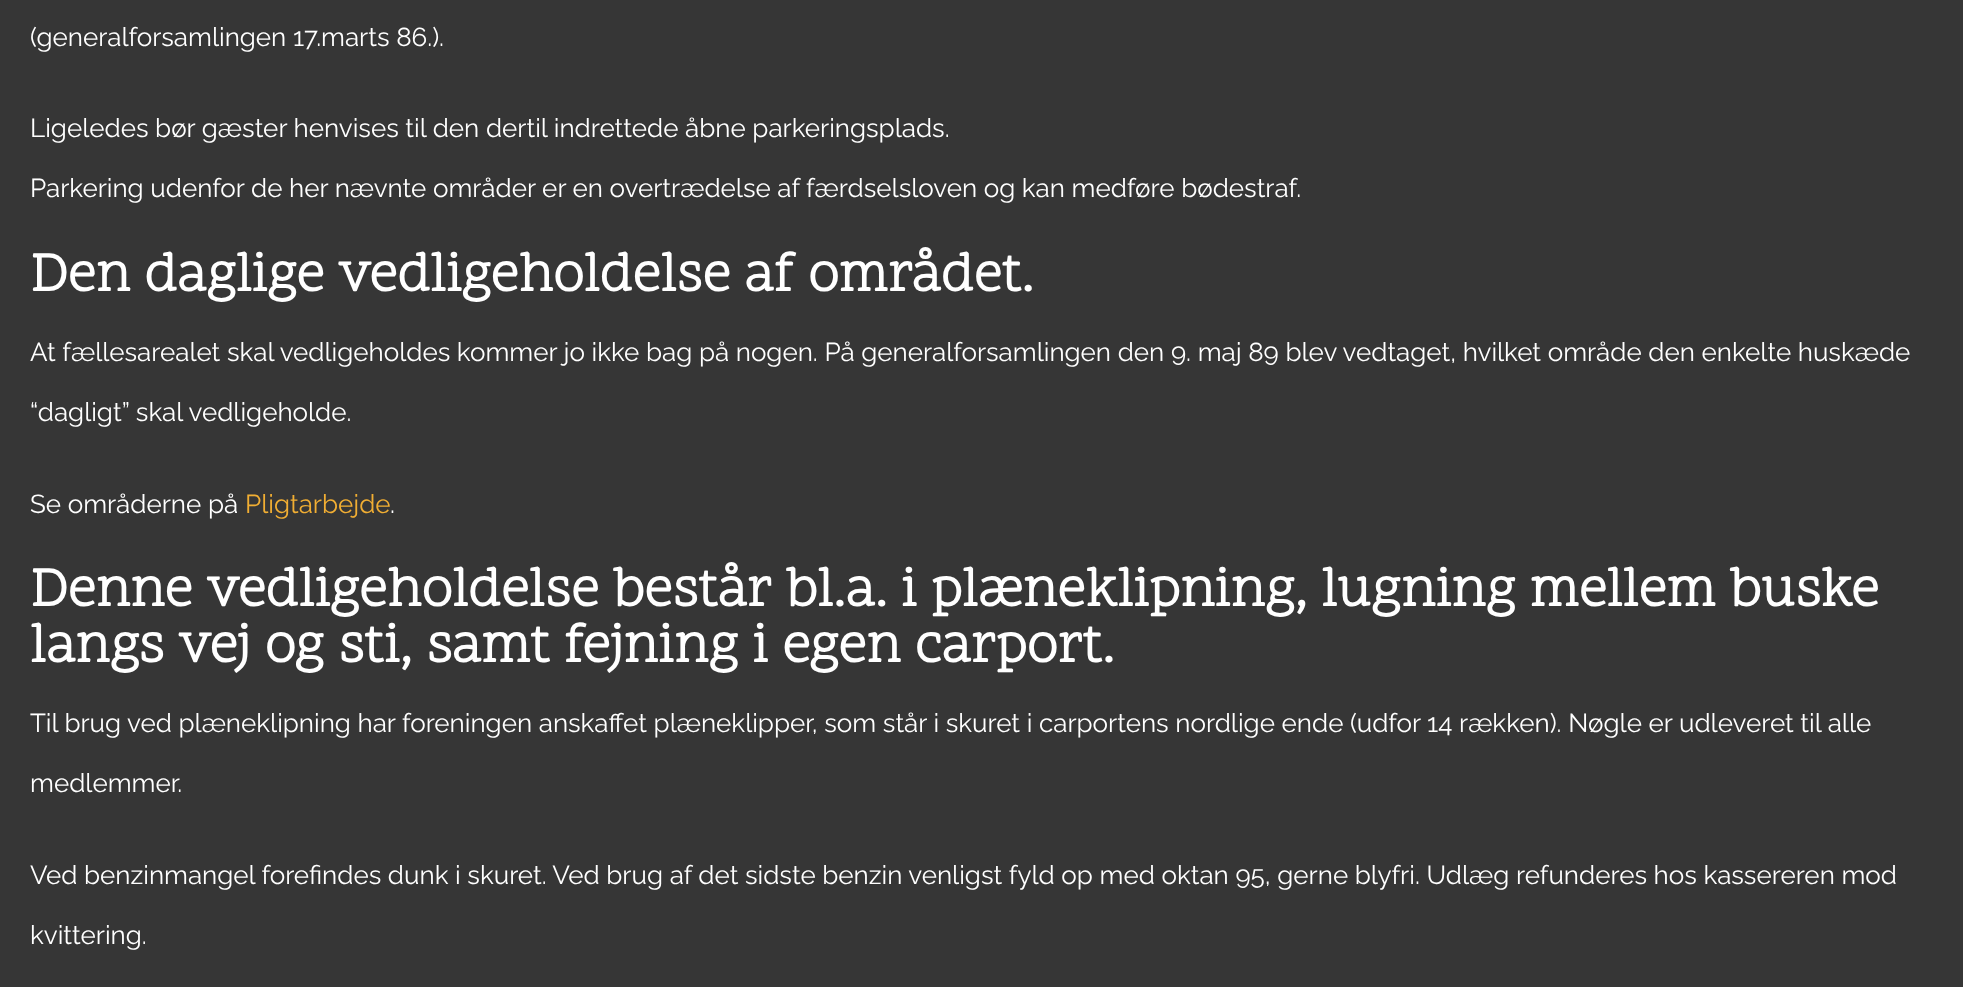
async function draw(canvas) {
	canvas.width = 1963;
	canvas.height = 987;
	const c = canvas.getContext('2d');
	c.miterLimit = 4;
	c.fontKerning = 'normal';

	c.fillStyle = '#363636';
	c.fillRect(0, 0, 1963, 987);
	c.font = '26px Raleway';
	c.fillStyle = '#fff';
	for (const [text, x, y] of [
		['(generalforsamlingen 17.marts 86.).', 30, 46],
		['Ligeledes bør gæster henvises til den dertil indrettede åbne parkeringsplads.', 30, 137],
		['Parkering udenfor de her nævnte områder er en overtrædelse af færdselsloven og kan medføre bødestraf.', 30, 197],
	]) {
		c.fillText(text, x, y);
	}
	c.font = 'bold 56px Scope One';
	c.fillText('Den daglige vedligeholdelse af området.', 30, 291);
	c.font = '26px Raleway';
	for (const [text, x, y] of [
		['At fællesarealet skal vedligeholdes kommer jo ikke bag på nogen. På generalforsamlingen den 9. maj 89 blev vedtaget, hvilket område den enkelte huskæde', 30, 361],
		['“dagligt” skal vedligeholde.', 30, 421],
		['Se områderne på', 30, 513],
	]) {
		c.fillText(text, x, y);
	}
	c.fillStyle = '#f1ae33';
	c.fillText('Pligtarbejde', 245, 513);
	c.fillStyle = '#fff';
	c.fillText('.', 390, 513);
	c.font = 'bold 56px Scope One';
	c.fillText('Denne vedligeholdelse består bl.a. i plæneklipning, lugning mellem buske', 30, 606);
	c.fillText('langs vej og sti, samt fejning i egen carport.', 30, 662);
	c.font = '26px Raleway';
	for (const [text, x, y] of [
		['Til brug ved plæneklipning har foreningen anskaffet plæneklipper, som står i skuret i carportens nordlige ende (udfor 14 rækken). Nøgle er udleveret til alle', 30, 732],
		['medlemmer.', 30, 792],
		['Ved benzinmangel forefindes dunk i skuret. Ved brug af det sidste benzin venligst fyld op med oktan 95, gerne blyfri. Udlæg refunderes hos kassereren mod', 30, 884],
		['kvittering.', 30, 944],
	]) {
		c.fillText(text, x, y);
	}
}

draw(document.querySelector('canvas'));
